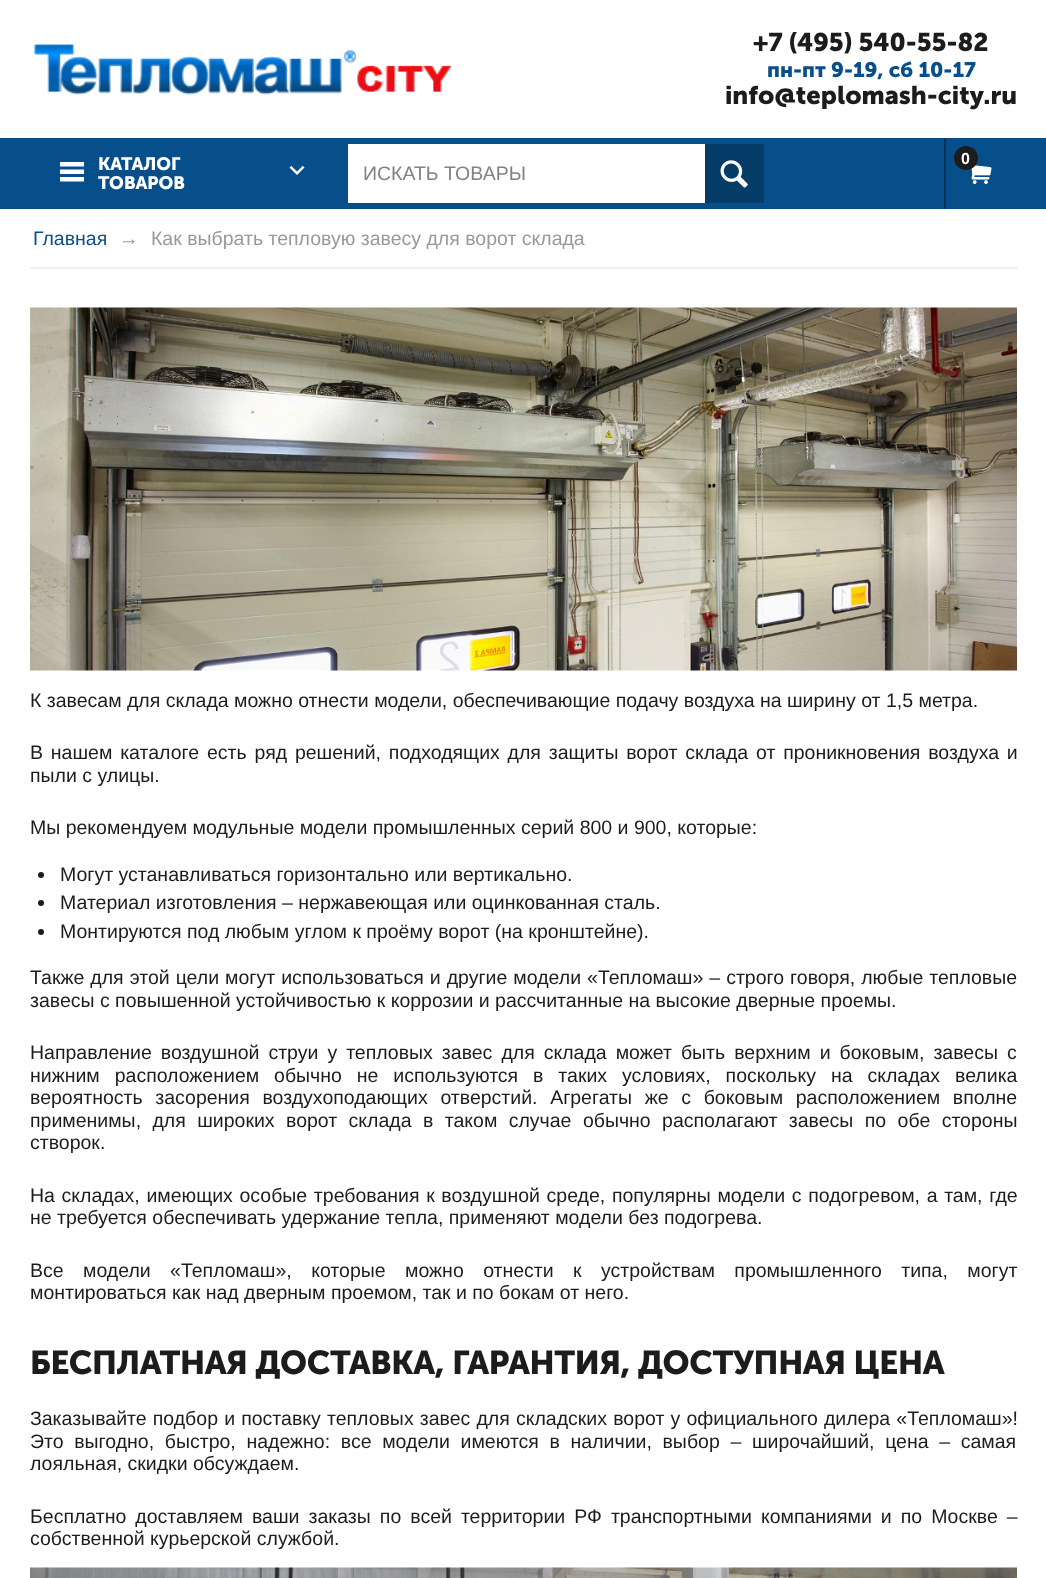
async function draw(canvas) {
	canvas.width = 1046;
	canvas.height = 1578;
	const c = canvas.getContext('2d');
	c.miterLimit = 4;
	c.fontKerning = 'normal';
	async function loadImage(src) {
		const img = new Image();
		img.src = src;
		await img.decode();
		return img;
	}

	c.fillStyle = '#fff';
	c.fillRect(0, 0, 1046, 1578);
	c.drawImage(await loadImage('img1.png'), 34, 44, 418, 51);
	c.font = 'bold 25.5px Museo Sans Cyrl';
	c.fillStyle = '#1c1c1c';
	c.fillText('+7 (495) 540-55-82', 753, 51);
	c.font = 'bold 21px Museo Sans Cyrl';
	c.fillStyle = '#074f8a';
	c.fillText('пн-пт 9-19, cб 10-17', 767, 77);
	c.font = 'bold 25.5px Museo Sans Cyrl';
	c.fillStyle = '#1c1c1c';
	c.fillText('info@teplomash-city.ru', 725, 104);
	c.fillStyle = '#074f8a';
	c.fillRect(0, 138, 1046, 71);
	c.drawImage(await loadImage('img2.png'), 60, 162, 24, 20);
	c.font = 'bold 18px Museo Sans Cyrl';
	c.fillStyle = '#fff';
	c.fillText('КАТАЛОГ', 98, 170);
	c.drawImage(await loadImage('img3.png'), 289, 165, 16, 10);
	c.fillText('ТОВАРОВ', 98, 189);
	c.fillRect(348, 144, 357, 59);
	c.font = '19.5px Liberation Sans';
	c.fillStyle = '#828282';
	c.fillText('ИСКАТЬ ТОВАРЫ', 363, 180);
	c.fillStyle = '#053c68';
	c.fillRect(705, 144, 59, 59);
	c.drawImage(await loadImage('img4.png'), 720, 160, 28, 28);
	c.fillStyle = '#053359';
	c.fillRect(944, 138, 2, 71);
	c.drawImage(await loadImage('img5.png'), 971, 165, 21, 19);
	c.fillStyle = '#1c1c1c';
	c.beginPath();
	c.arc(966, 158, 12, 0, 2 * Math.PI);
	c.fill();
	c.font = 'bold 16px Liberation Sans';
	c.fillStyle = '#fff';
	c.fillText('0', 961, 164);
	c.fillStyle = '#eee';
	c.fillRect(30, 267, 987, 2);
	c.font = '19.5px Liberation Sans';
	c.fillStyle = '#074f8a';
	c.fillText('Главная', 33, 245);
	c.fillStyle = '#999';
	c.fillText('→', 119, 245);
	c.fillText('Как выбрать тепловую завесу для ворот склада', 151, 245);
	c.drawImage(await loadImage('img6.png'), 30, 307, 987, 364);
	c.fillStyle = '#1c1c1c';
	c.fillText('К завесам для склада можно отнести модели, обеспечивающие подачу воздуха на ширину от 1,5 метра.', 30, 707);
	c.wordSpacing = '2.4px';
	c.fillText('В нашем каталоге', 30, 759);
	c.fillText('есть ряд решений, подходящих для защиты ворот склада от проникновения воздуха и', 207, 759);
	c.wordSpacing = '0px';
	c.fillText('пыли с улицы.', 30, 782);
	c.fillText('Мы рекомендуем модульные модели промышленных серий 800 и 900, которые:', 30, 834);
	c.beginPath();
	c.arc(41, 875, 3, 0, 2 * Math.PI);
	c.fill();
	c.fillText('Могут устанавливаться горизонтально или вертикально.', 60, 881);
	c.beginPath();
	c.arc(41, 903, 3, 0, 2 * Math.PI);
	c.fill();
	c.fillText('Материал изготовления – нержавеющая или оцинкованная сталь.', 60, 909);
	c.beginPath();
	c.arc(41, 932, 3, 0, 2 * Math.PI);
	c.fill();
	c.fillText('Монтируются под любым углом к проёму ворот (на кронштейне).', 60, 938);
	c.wordSpacing = '0.6px';
	c.fillText('Также для этой цели могут использоваться и другие модели «Тепломаш» – строго говоря, любые тепловые', 30, 984);
	c.wordSpacing = '0px';
	c.fillText('завесы с повышенной устойчивостью к коррозии и рассчитанные на высокие дверные проемы.', 30, 1007);
	c.wordSpacing = '3.6px';
	c.fillText('Направление воздушной струи у тепловых завес для склада может быть верхним и боковым, завесы с', 30, 1059);
	c.wordSpacing = '9.5px';
	c.fillText('нижним расположением обычно не используются в таких условиях, поскольку на складах велика', 30, 1082);
	c.wordSpacing = '7.25px';
	c.fillText('вероятность засорения воздухоподающих отверстий. Агрегаты же с боковым расположением вполне', 30, 1104);
	c.wordSpacing = '6px';
	c.fillText('применимы, для широких ворот склада в таком случае обычно располагают завесы по обе стороны', 30, 1127);
	c.wordSpacing = '0px';
	c.fillText('створок.', 30, 1149);
	c.wordSpacing = '1.25px';
	c.fillText('На складах, имеющих особые требования к воздушной среде, популярны модели с подогревом, а там, где', 30, 1202);
	c.wordSpacing = '0px';
	c.fillText('не требуется обеспечивать удержание тепла, применяют модели без подогрева.', 30, 1224);
	c.wordSpacing = '14px';
	c.fillText('Все модели «Тепломаш», которые можно отнести к устройствам промышленного типа, могут', 30, 1277);
	c.wordSpacing = '0px';
	c.fillText('монтироваться как над дверным проемом, так и по бокам от него.', 30, 1299);
	c.letterSpacing = '-0.35px';
	c.font = 'bold 33px Museo Sans Cyrl';
	c.fillText('БЕСПЛАТНАЯ ДОСТАВКА, ГАРАНТИЯ, ДОСТУПНАЯ ЦЕНА', 30, 1374);
	c.letterSpacing = '0px';
	c.wordSpacing = '0.75px';
	c.font = '19.5px Liberation Sans';
	c.fillText('Заказывайте подбор и поставку тепловых завес для складских ворот у официального дилера «Тепломаш»!', 30, 1425);
	c.wordSpacing = '5.25px';
	c.fillText('Это выгодно, быстро, надежно: все модели имеются в наличии, выбор – широчайший, цена – самая', 30, 1448);
	c.wordSpacing = '0px';
	c.fillText('лояльная, скидки обсуждаем.', 30, 1470);
	c.wordSpacing = '3.6px';
	c.fillText('Бесплатно доставляем ваши заказы по всей территории РФ транспортными компаниями и по Москве –', 30, 1523);
	c.wordSpacing = '0px';
	c.fillText('собственной курьерской службой.', 30, 1545);
	c.drawImage(await loadImage('img7.png'), 30, 1567, 987, 11);
}

draw(document.querySelector('canvas'));
